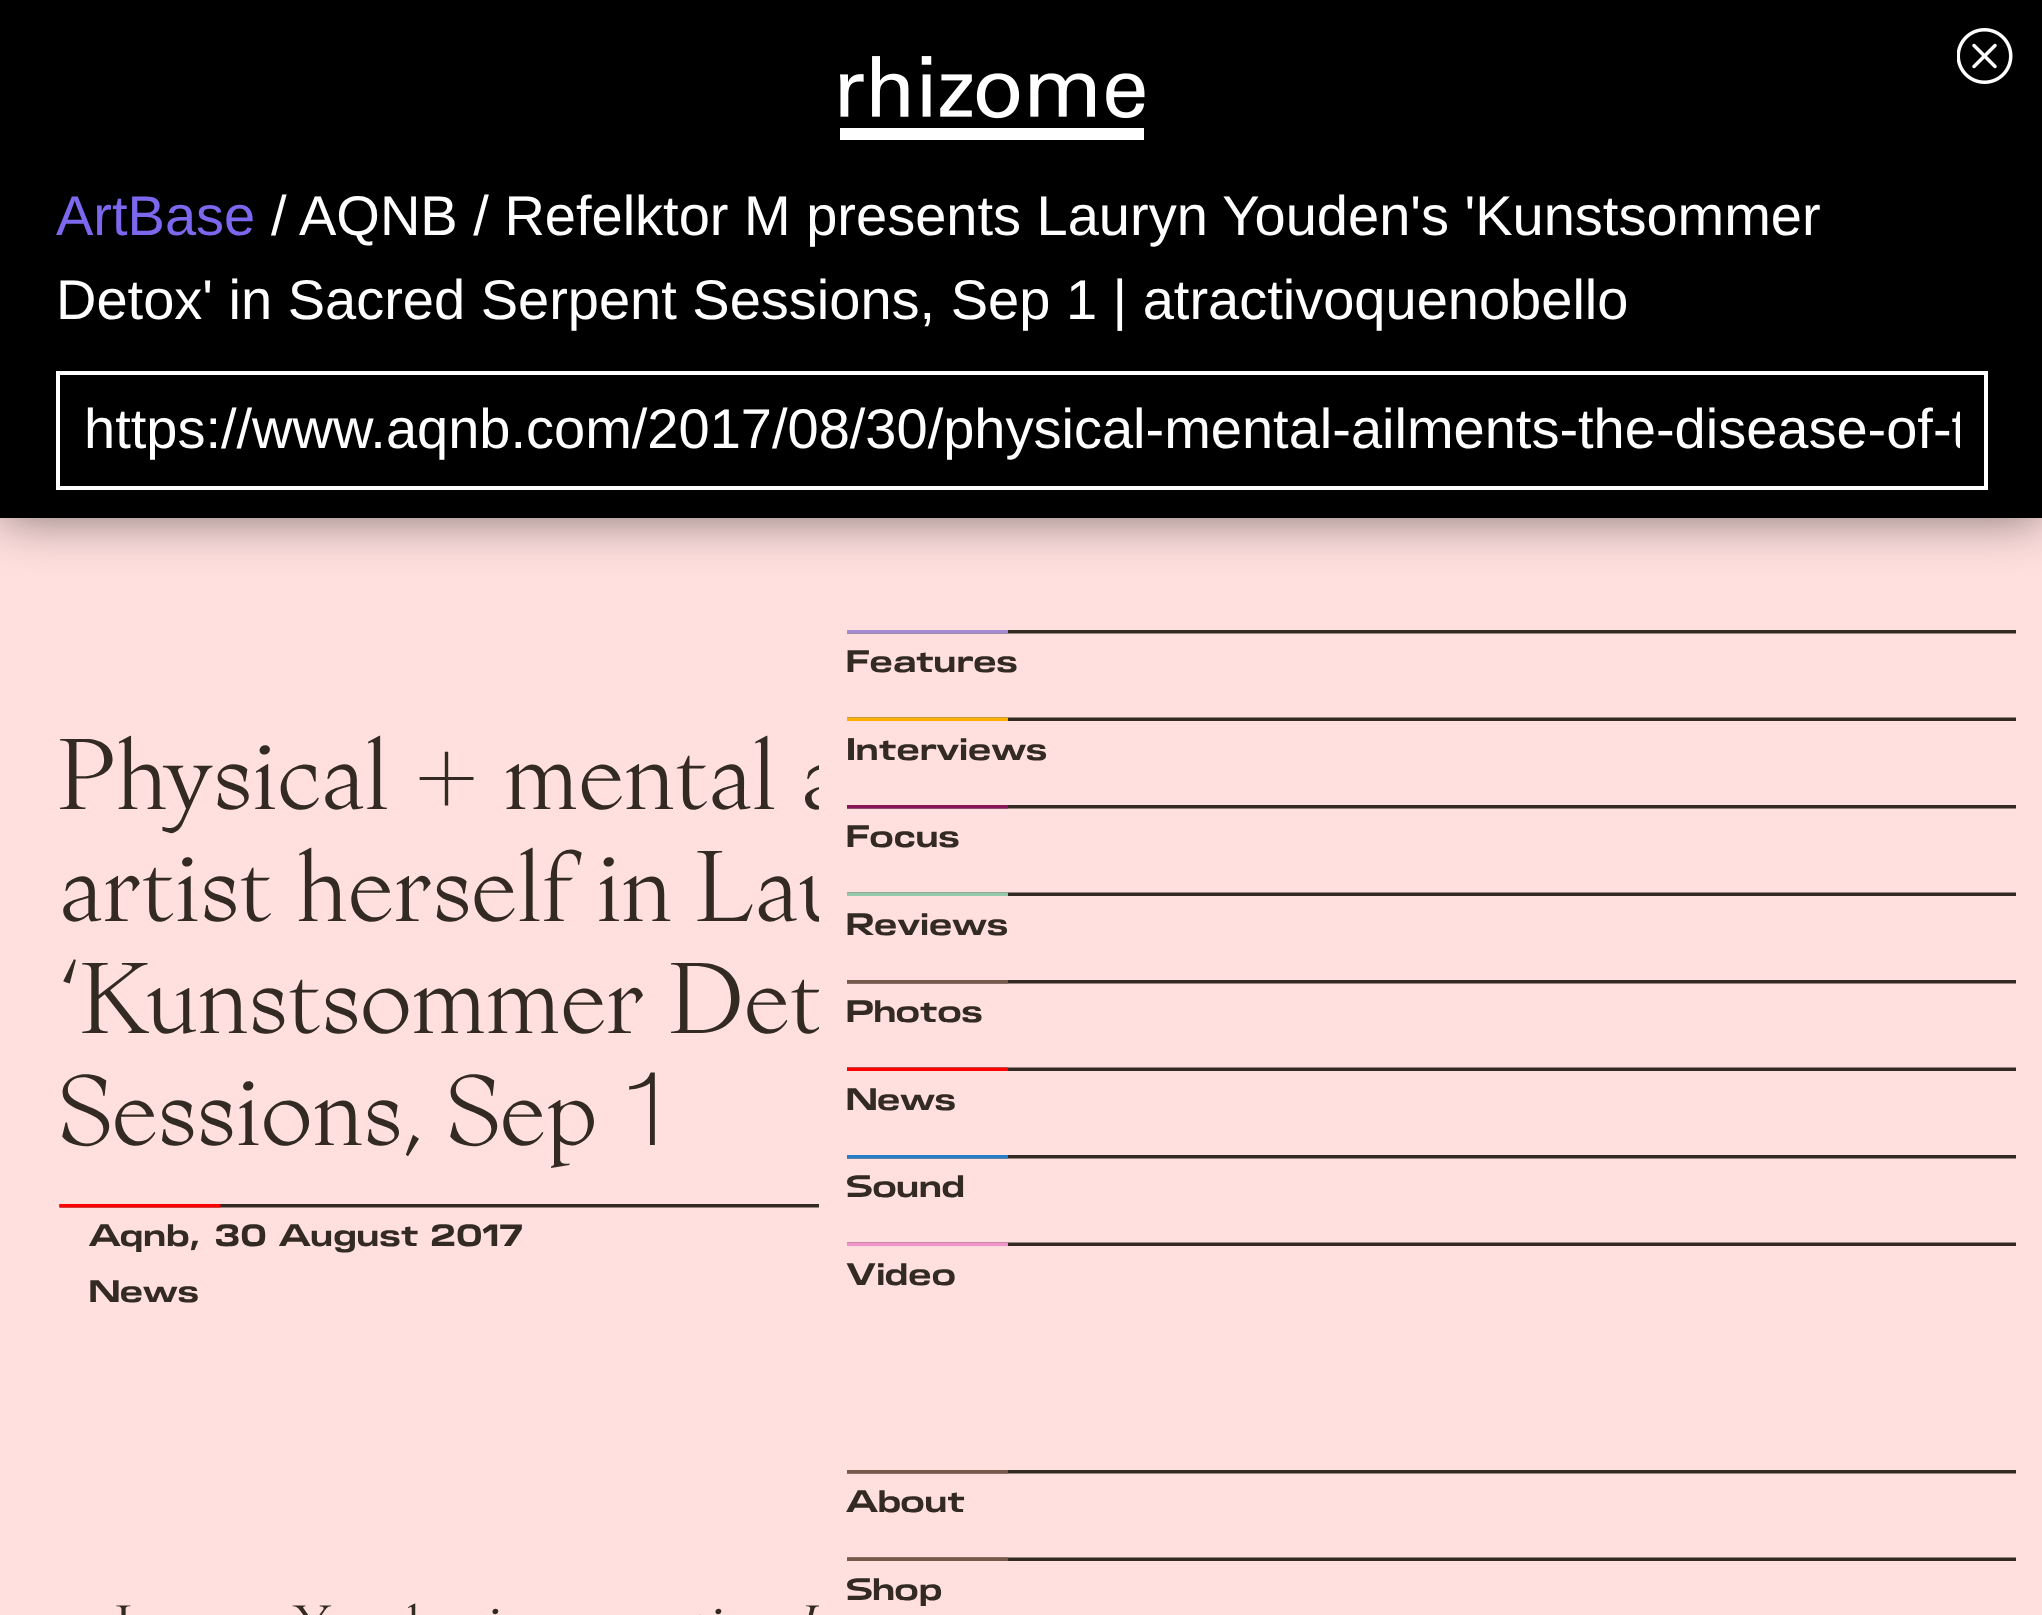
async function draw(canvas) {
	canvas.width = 2042;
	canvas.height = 1615;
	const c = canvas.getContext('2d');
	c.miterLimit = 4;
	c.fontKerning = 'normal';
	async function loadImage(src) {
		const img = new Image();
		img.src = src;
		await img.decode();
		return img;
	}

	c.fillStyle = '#fff';
	c.fillRect(0, 0, 2042, 1615);
	c.drawImage(await loadImage('img3.png'), 0, 518, 2042, 1097);
	c.fillStyle = '#00000080';
	c.filter = 'blur(26px)';
	c.beginPath();
	c.rect(0, 0, 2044, 518);
	c.fill();
	c.filter = 'none';
	c.fillStyle = '#000';
	c.fillRect(0, 0, 2042, 518);
	c.drawImage(await loadImage('img1.png'), 840, 56, 305, 84);
	c.drawImage(await loadImage('img2.png'), 1957, 28, 56, 56);
	c.font = '56px Liberation Sans';
	c.fillStyle = '#7b68ee';
	c.fillText('ArtBase', 56, 235);
	c.fillStyle = '#fff';
	for (const [text, x, y] of [
		['/', 271, 235],
		['AQNB / Refelktor M presents Lauryn Youden\'s \'Kunstsommer', 299, 235],
		['Detox\' in Sacred Serpent Sessions, Sep 1 | atractivoquenobello', 56, 319],
	]) {
		c.fillText(text, x, y);
	}
	c.strokeStyle = '#fff';
	c.lineWidth = 4;
	c.strokeRect(58, 373, 1928, 115);
	c.save();
	c.beginPath();
	c.rect(84, 389, 1876, 84);
	c.clip();
	c.fillText('https://www.aqnb.com/2017/08/30/physical-mental-ailments-the-disease-of-t', 84, 448);
	c.restore();
}

draw(document.querySelector('canvas'));
